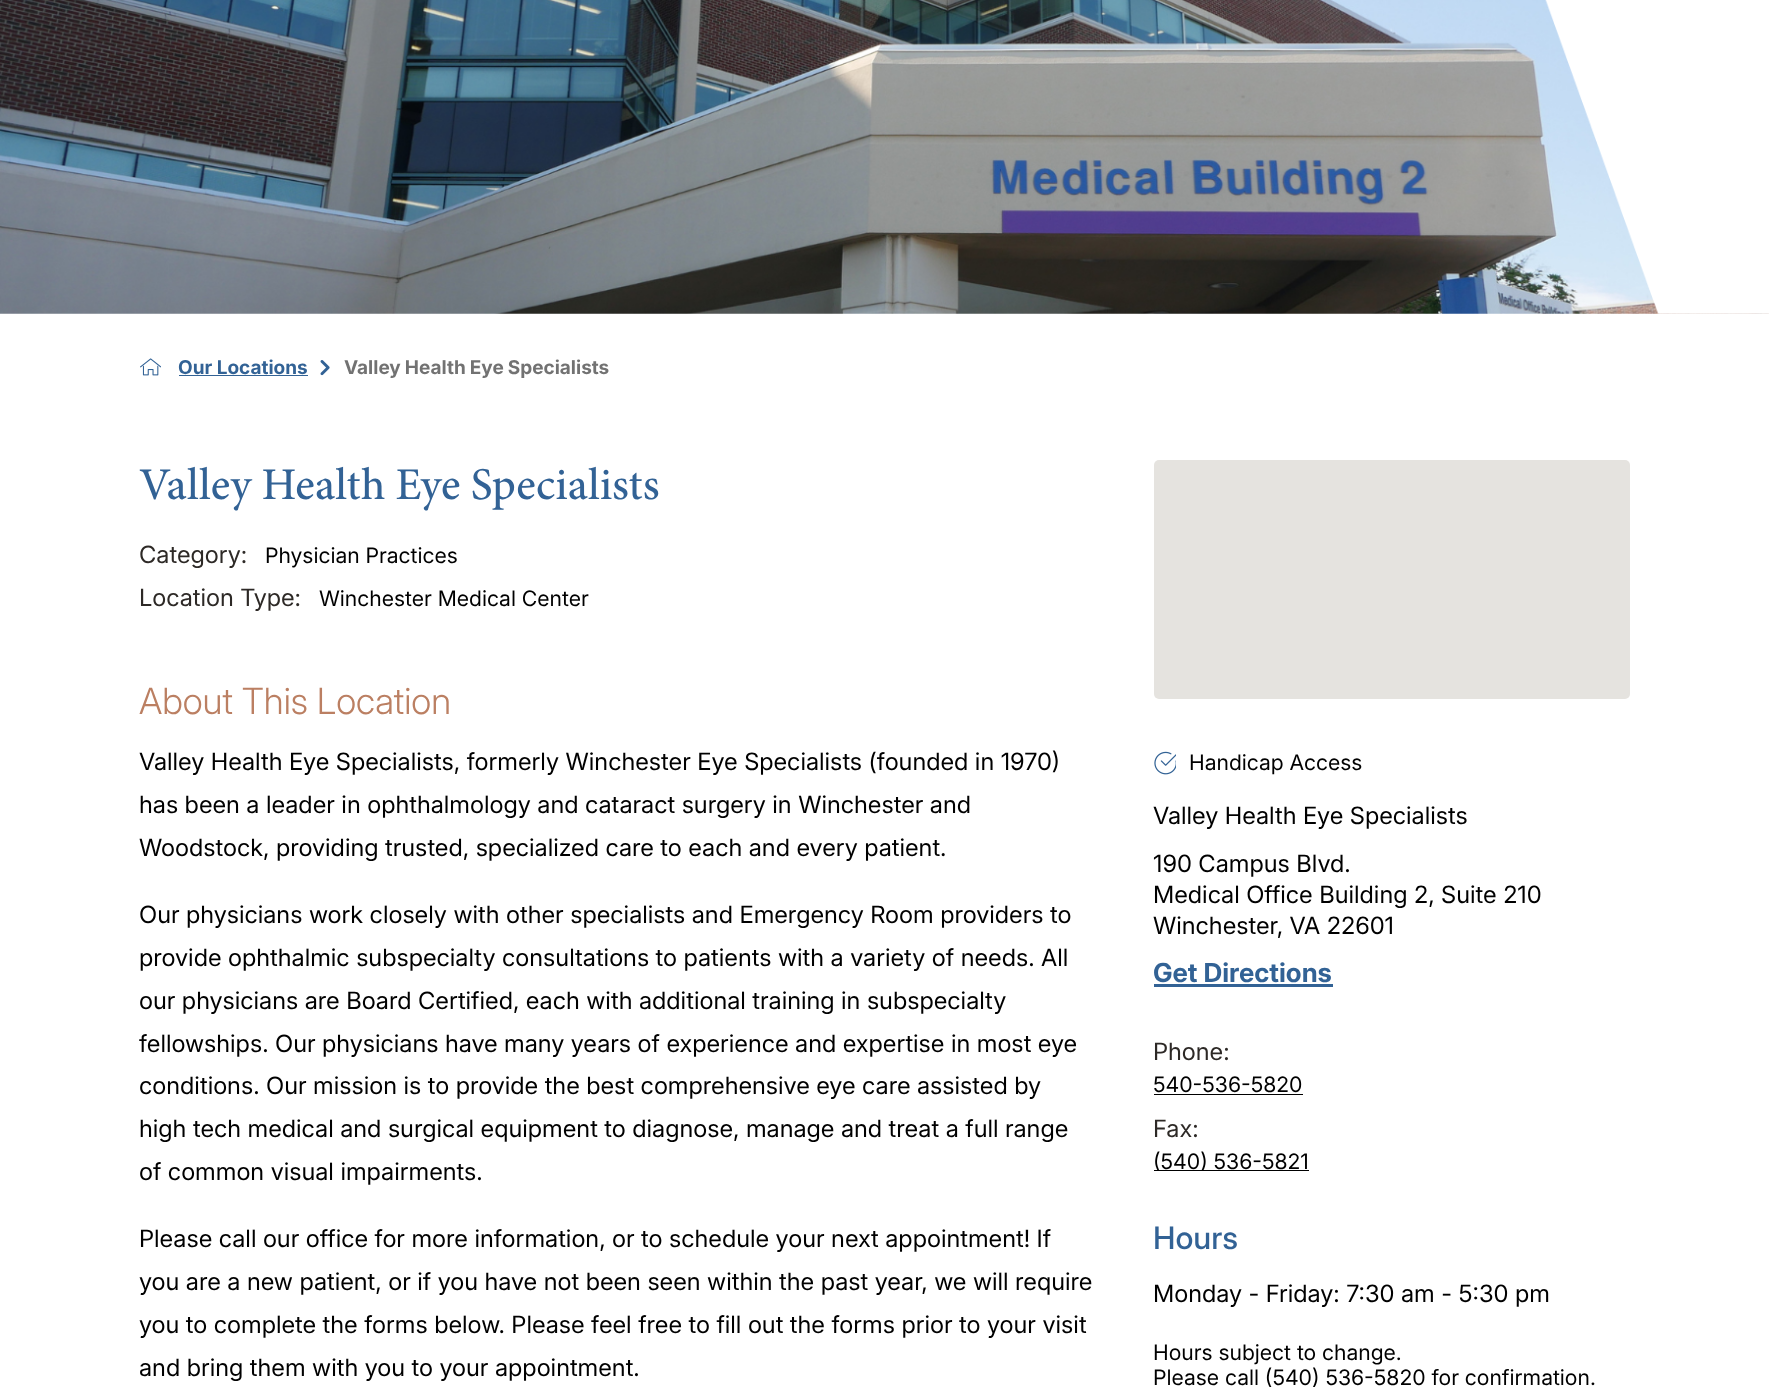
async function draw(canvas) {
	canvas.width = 1769;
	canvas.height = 1393;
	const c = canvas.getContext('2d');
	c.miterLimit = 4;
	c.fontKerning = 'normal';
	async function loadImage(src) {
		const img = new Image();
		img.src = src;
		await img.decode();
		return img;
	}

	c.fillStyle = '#fff';
	c.fillRect(0, 0, 1769, 1393);
	c.drawImage(await loadImage('img1.png'), 0, 0, 1769, 314);
	c.drawImage(await loadImage('img2.png'), 1545, 0, 224, 314);
	c.drawImage(await loadImage('img3.png'), 140, 358, 21, 18);
	c.font = 'bold 19px Inter';
	c.fillStyle = '#326295';
	c.fillText('Our Locations', 178, 374);
	c.fillRect(179, 375, 129, 1);
	c.drawImage(await loadImage('img4.png'), 320, 360, 10, 16);
	c.wordSpacing = '-0.5px';
	c.fillStyle = '#727272';
	c.fillText('Valley Health Eye Specialists', 344, 374);
	c.wordSpacing = '0px';
	c.font = '500 45.4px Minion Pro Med';
	c.fillStyle = '#326295';
	c.fillText('Valley Health Eye Specialists', 139, 499);
	c.font = '23.85px Inter';
	c.fillStyle = '#2d2926';
	c.fillText('Category:', 139, 563);
	c.font = '21.3px "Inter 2"';
	c.fillStyle = '#000';
	c.fillText('Physician Practices', 265, 563);
	c.font = '23.85px Inter';
	c.fillStyle = '#2d2926';
	c.fillText('Location Type:', 139, 606);
	c.font = '21.3px "Inter 2"';
	c.fillStyle = '#000';
	c.fillText('Winchester Medical Center', 319, 606);
	c.font = '300 36.25px Inter';
	c.fillStyle = '#bb7f62';
	c.fillText('About This Location', 139, 714);
	c.font = '23.85px Inter';
	c.fillStyle = '#000';
	for (const [text, x, y] of [
		['Valley Health Eye Specialists, formerly Winchester Eye Specialists (founded in 1970)', 139, 770],
		['has been a leader in ophthalmology and cataract surgery in Winchester and', 139, 813],
		['Woodstock, providing trusted, specialized care to each and every patient.', 139, 856],
		['Our physicians work closely with other specialists and Emergency Room providers to', 139, 923],
		['provide ophthalmic subspecialty consultations to patients with a variety of needs. All', 139, 966],
		['our physicians are Board Certified, each with additional training in subspecialty', 139, 1009],
		['fellowships. Our physicians have many years of experience and expertise in most eye', 139, 1052],
		['conditions. Our mission is to provide the best comprehensive eye care assisted by', 139, 1094],
		['high tech medical and surgical equipment to diagnose, manage and treat a full range', 139, 1137],
		['of common visual impairments.', 139, 1180],
		['Please call our office for more information, or to schedule your next appointment! If', 139, 1247],
		['you are a new patient, or if you have not been seen within the past year, we will require', 139, 1290],
		['you to complete the forms below. Please feel free to fill out the forms prior to your visit', 139, 1333],
		['and bring them with you to your appointment.', 139, 1376],
	]) {
		c.fillText(text, x, y);
	}
	c.fillStyle = '#e5e3df';
	c.beginPath();
	c.roundRect(1154, 460, 476, 239, 5);
	c.fill();
	c.drawImage(await loadImage('img5.png'), 1154, 751, 22, 24);
	c.font = '21.3px "Inter 2"';
	c.fillStyle = '#000';
	c.fillText('Handicap Access', 1189, 770);
	c.font = '23.85px Inter';
	for (const [text, x, y] of [
		['Valley Health Eye Specialists', 1153, 824],
		['190 Campus Blvd.', 1153, 872],
		['Medical Office Building 2, Suite 210', 1153, 903],
		['Winchester, VA 22601', 1153, 934],
	]) {
		c.fillText(text, x, y);
	}
	c.font = 'bold 26.25px "Inter 2"';
	c.fillStyle = '#326295';
	c.fillText('Get Directions', 1153, 982);
	c.fillRect(1154, 984, 179, 3);
	c.font = '23.85px Inter';
	c.fillStyle = '#2d2926';
	c.fillText('Phone:', 1153, 1060);
	c.font = '21.3px "Inter 2"';
	c.fillStyle = '#000';
	c.fillText('540-536-5820', 1153, 1092);
	c.fillRect(1154, 1094, 149, 1);
	c.font = '23.85px Inter';
	c.fillStyle = '#2d2926';
	c.fillText('Fax:', 1153, 1137);
	c.fillStyle = '#000';
	c.fillRect(1154, 1170, 155, 1);
	c.font = '21.3px "Inter 2"';
	c.fillText('(540) 536-5821', 1153, 1169);
	c.font = '500 31px Inter';
	c.fillStyle = '#326295';
	c.fillText('Hours', 1153, 1249);
	c.font = '23.85px Inter';
	c.fillStyle = '#000';
	c.fillText('Monday - Friday: 7:30 am - 5:30 pm', 1153, 1302);
	c.font = '21.3px "Inter 2"';
	c.fillText('Hours subject to change.', 1153, 1360);
	c.fillText('Please call (540) 536-5820 for confirmation.', 1153, 1385);
}

draw(document.querySelector('canvas'));
